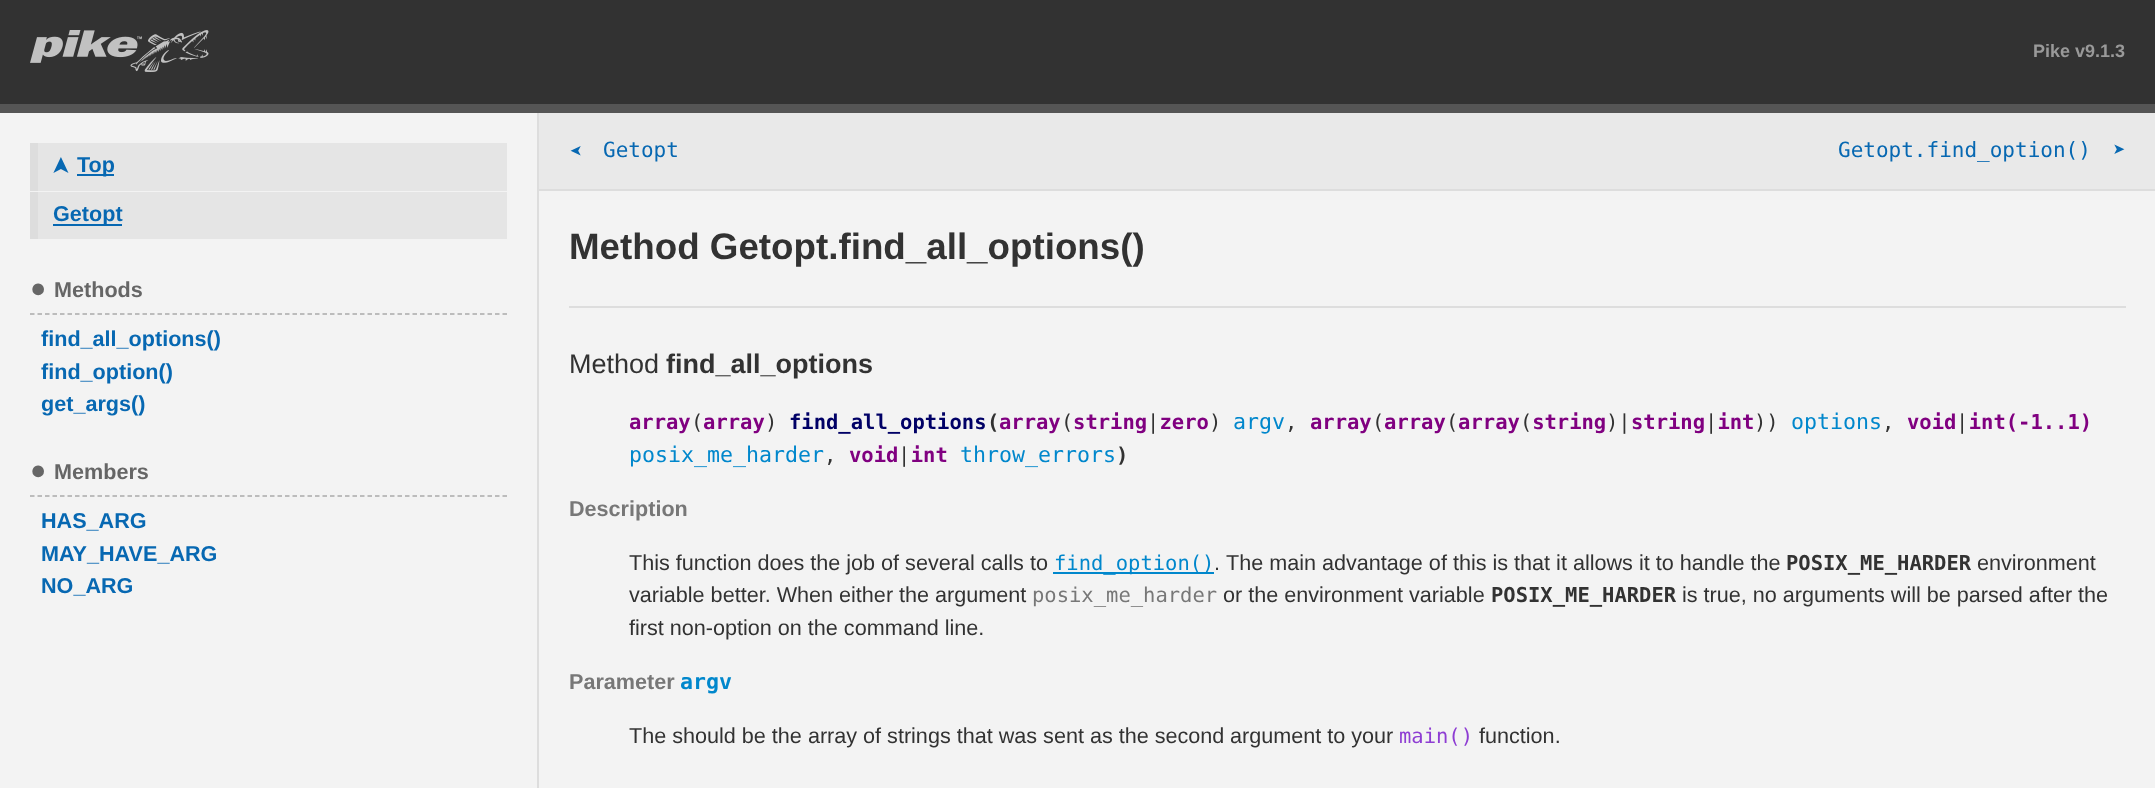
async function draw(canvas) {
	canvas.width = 2155;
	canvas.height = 788;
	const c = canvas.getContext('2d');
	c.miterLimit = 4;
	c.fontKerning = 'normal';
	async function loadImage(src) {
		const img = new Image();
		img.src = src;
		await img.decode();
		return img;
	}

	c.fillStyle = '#f3f3f3';
	c.fillRect(0, 0, 2155, 788);
	c.fillStyle = '#323232';
	c.fillRect(0, 0, 2155, 104);
	c.fillStyle = '#555';
	c.fillRect(0, 104, 2155, 9);
	c.drawImage(await loadImage('img1.png'), 30, 30, 179, 42);
	c.font = 'bold 18px Liberation Sans';
	c.fillStyle = '#999';
	c.fillText('Pike v9.1.3', 2033, 57);
	for (const [x, y, w, h, color] of [
		[537, 113, 2, 675, '#ddd'],
		[38, 143, 469, 48, '#e5e5e5'],
		[30, 143, 8, 48, '#ddd'],
	]) {
		c.fillStyle = color;
		c.fillRect(x, y, w, h);
	}
	c.font = 'bold 21.6px DejaVu Sans';
	c.fillStyle = '#0768b2';
	c.save();
	c.translate(68, 175);
	c.rotate(-90 * Math.PI / 180);
	c.fillText('➤', 0, 0);
	c.restore();
	c.fillRect(77, 174, 37, 2);
	c.font = 'bold 21.6px Liberation Sans';
	c.fillText('Top', 77, 172);
	for (const [x, y, w, h, color] of [
		[38, 192, 469, 47, '#e5e5e5'],
		[30, 192, 8, 47, '#ddd'],
		[53, 224, 69, 2, '#0768b2'],
	]) {
		c.fillStyle = color;
		c.fillRect(x, y, w, h);
	}
	c.fillText('Getopt', 53, 221);
	c.beginPath();
	c.moveTo(30, 314);
	c.lineTo(507, 314);
	c.strokeStyle = '#aaa';
	c.lineWidth = 1.5;
	c.setLineDash([4.5, 3]);
	c.stroke();
	c.font = 'bold 27px Liberation Sans';
	c.fillStyle = '#666';
	c.fillText('●', 30, 297);
	c.font = 'bold 21.6px Liberation Sans';
	c.fillText('Methods', 54, 297);
	c.fillStyle = '#0768b2';
	for (const [text, x, y] of [
		['find_all_options()', 41, 346],
		['find_option()', 41, 379],
		['get_args()', 41, 411],
	]) {
		c.fillText(text, x, y);
	}
	c.beginPath();
	c.moveTo(30, 496);
	c.lineTo(507, 496);
	c.stroke();
	c.font = 'bold 27px Liberation Sans';
	c.fillStyle = '#666';
	c.fillText('●', 30, 479);
	c.font = 'bold 21.6px Liberation Sans';
	c.fillText('Members', 54, 479);
	c.fillStyle = '#0768b2';
	for (const [text, x, y] of [
		['HAS_ARG', 41, 528],
		['MAY_HAVE_ARG', 41, 561],
		['NO_ARG', 41, 593],
	]) {
		c.fillText(text, x, y);
	}
	c.fillStyle = '#e9e9e9';
	c.fillRect(539, 113, 1616, 76);
	c.fillStyle = '#ddd';
	c.fillRect(539, 189, 1616, 2);
	c.font = '21px DejaVu Sans Mono';
	c.fillStyle = '#0768b2';
	c.save();
	c.translate(582, 143);
	c.rotate(180 * Math.PI / 180);
	c.fillText('➤', 0, 0);
	c.restore();
	for (const [text, x, y] of [
		['Getopt', 603, 157],
		['Getopt.find_option()', 1838, 157],
		['➤', 2113, 157],
	]) {
		c.fillText(text, x, y);
	}
	c.font = 'bold 36.75px Liberation Sans';
	c.fillStyle = '#323232';
	c.fillText('Method Getopt.find_all_options()', 569, 259);
	c.fillStyle = '#ddd';
	c.fillRect(569, 306, 1557, 2);
	c.font = '27px Liberation Sans';
	c.fillStyle = '#323232';
	c.fillText('Method', 569, 373);
	c.font = 'bold 27px Liberation Sans';
	c.fillText('find_all_options', 666, 373);
	c.font = 'bold 20.5px DejaVu Sans Mono';
	c.fillStyle = '#800080';
	c.fillText('array array', 629, 429);
	c.font = '20.5px DejaVu Sans Mono';
	c.fillStyle = '#323232';
	c.fillText('(', 691, 429);
	c.fillText(')', 765, 429);
	c.font = 'bold 20.5px DejaVu Sans Mono';
	c.fillStyle = '#006';
	c.fillText('find_all_options', 789, 429);
	c.fillStyle = '#323232';
	c.fillText('(', 987, 429);
	c.fillStyle = '#800080';
	for (const [text, x, y] of [
		['array string zero', 999, 429],
		['array array array string', 1310, 429],
		['string int', 1631, 429],
	]) {
		c.fillText(text, x, y);
	}
	c.font = '21.6px DejaVu Sans Mono';
	c.fillStyle = '#0087cc';
	c.fillText('options', 1791, 429);
	c.font = 'bold 20.5px DejaVu Sans Mono';
	c.fillStyle = '#800080';
	c.fillText('void int(-1..1)', 1907, 429);
	c.font = '20.5px DejaVu Sans Mono';
	c.fillStyle = '#323232';
	for (const [text, x, y] of [
		['(', 1061, 429],
		['|', 1147, 429],
		[')', 1209, 429],
	]) {
		c.fillText(text, x, y);
	}
	c.font = '21.6px DejaVu Sans Mono';
	c.fillStyle = '#0087cc';
	c.fillText('argv', 1233, 429);
	c.font = '20.5px DejaVu Sans Mono';
	c.fillStyle = '#323232';
	for (const [text, x, y] of [
		[',', 1285, 429],
		['(', 1372, 429],
		['(', 1446, 429],
		['(', 1520, 429],
		[')|', 1606, 429],
		['|', 1705, 429],
		['))', 1754, 429],
		[',', 1882, 429],
		['|', 1956, 429],
	]) {
		c.fillText(text, x, y);
	}
	c.font = '21.6px DejaVu Sans Mono';
	c.fillStyle = '#0087cc';
	c.fillText('posix_me_harder', 629, 462);
	c.font = 'bold 20.5px DejaVu Sans Mono';
	c.fillStyle = '#800080';
	c.fillText('void int', 849, 462);
	c.font = '21.6px DejaVu Sans Mono';
	c.fillStyle = '#0087cc';
	c.fillText('throw_errors', 960, 462);
	c.font = '20.5px DejaVu Sans Mono';
	c.fillStyle = '#323232';
	c.fillText(',', 824, 462);
	c.fillText('|', 898, 462);
	c.font = 'bold 20.5px DejaVu Sans Mono';
	c.fillText(')', 1116, 462);
	c.font = 'bold 21.6px Liberation Sans';
	c.fillStyle = '#777';
	c.fillText('Description', 569, 516);
	c.font = '21.6px Liberation Sans';
	c.fillStyle = '#323232';
	c.fillText('This function does the job of several calls to', 629, 570);
	c.fillStyle = '#0087cc';
	c.fillRect(1053, 572, 161, 2);
	c.font = '20.5px DejaVu Sans Mono';
	c.fillText('find_option()', 1054, 570);
	c.font = '21.6px Liberation Sans';
	c.fillStyle = '#323232';
	c.fillText('.', 1214, 570);
	c.fillText('The main advantage of this is that it allows it to handle the', 1226, 570);
	c.font = 'bold 20.5px DejaVu Sans Mono';
	c.fillText('POSIX_ME_HARDER', 1786, 570);
	c.font = '21.6px Liberation Sans';
	c.fillText('environment', 1977, 570);
	c.fillText('variable better. When either the argument', 629, 602);
	c.font = '20.5px DejaVu Sans Mono';
	c.fillStyle = '#777';
	c.fillText('posix_me_harder', 1032, 602);
	c.font = '21.6px Liberation Sans';
	c.fillStyle = '#323232';
	c.fillText('or the environment variable', 1223, 602);
	c.font = 'bold 20.5px DejaVu Sans Mono';
	c.fillText('POSIX_ME_HARDER', 1491, 602);
	c.font = '21.6px Liberation Sans';
	c.fillText('is true, no arguments will be parsed after the', 1682, 602);
	c.fillText('first non-option on the command line.', 629, 635);
	c.font = 'bold 21.6px Liberation Sans';
	c.fillStyle = '#777';
	c.fillText('Parameter', 569, 689);
	c.font = 'bold 21.6px DejaVu Sans Mono';
	c.fillStyle = '#0087cc';
	c.fillText('argv', 680, 689);
	c.font = '21.6px Liberation Sans';
	c.fillStyle = '#323232';
	c.fillText('The should be the array of strings that was sent as the second', 629, 743);
	c.fillText('argument to your', 1230, 743);
	c.font = '20.5px DejaVu Sans Mono';
	c.fillStyle = '#8e3dd3';
	c.fillText('main()', 1399, 743);
	c.font = '21.6px Liberation Sans';
	c.fillStyle = '#323232';
	c.fillText('function.', 1479, 743);
}

draw(document.querySelector('canvas'));
